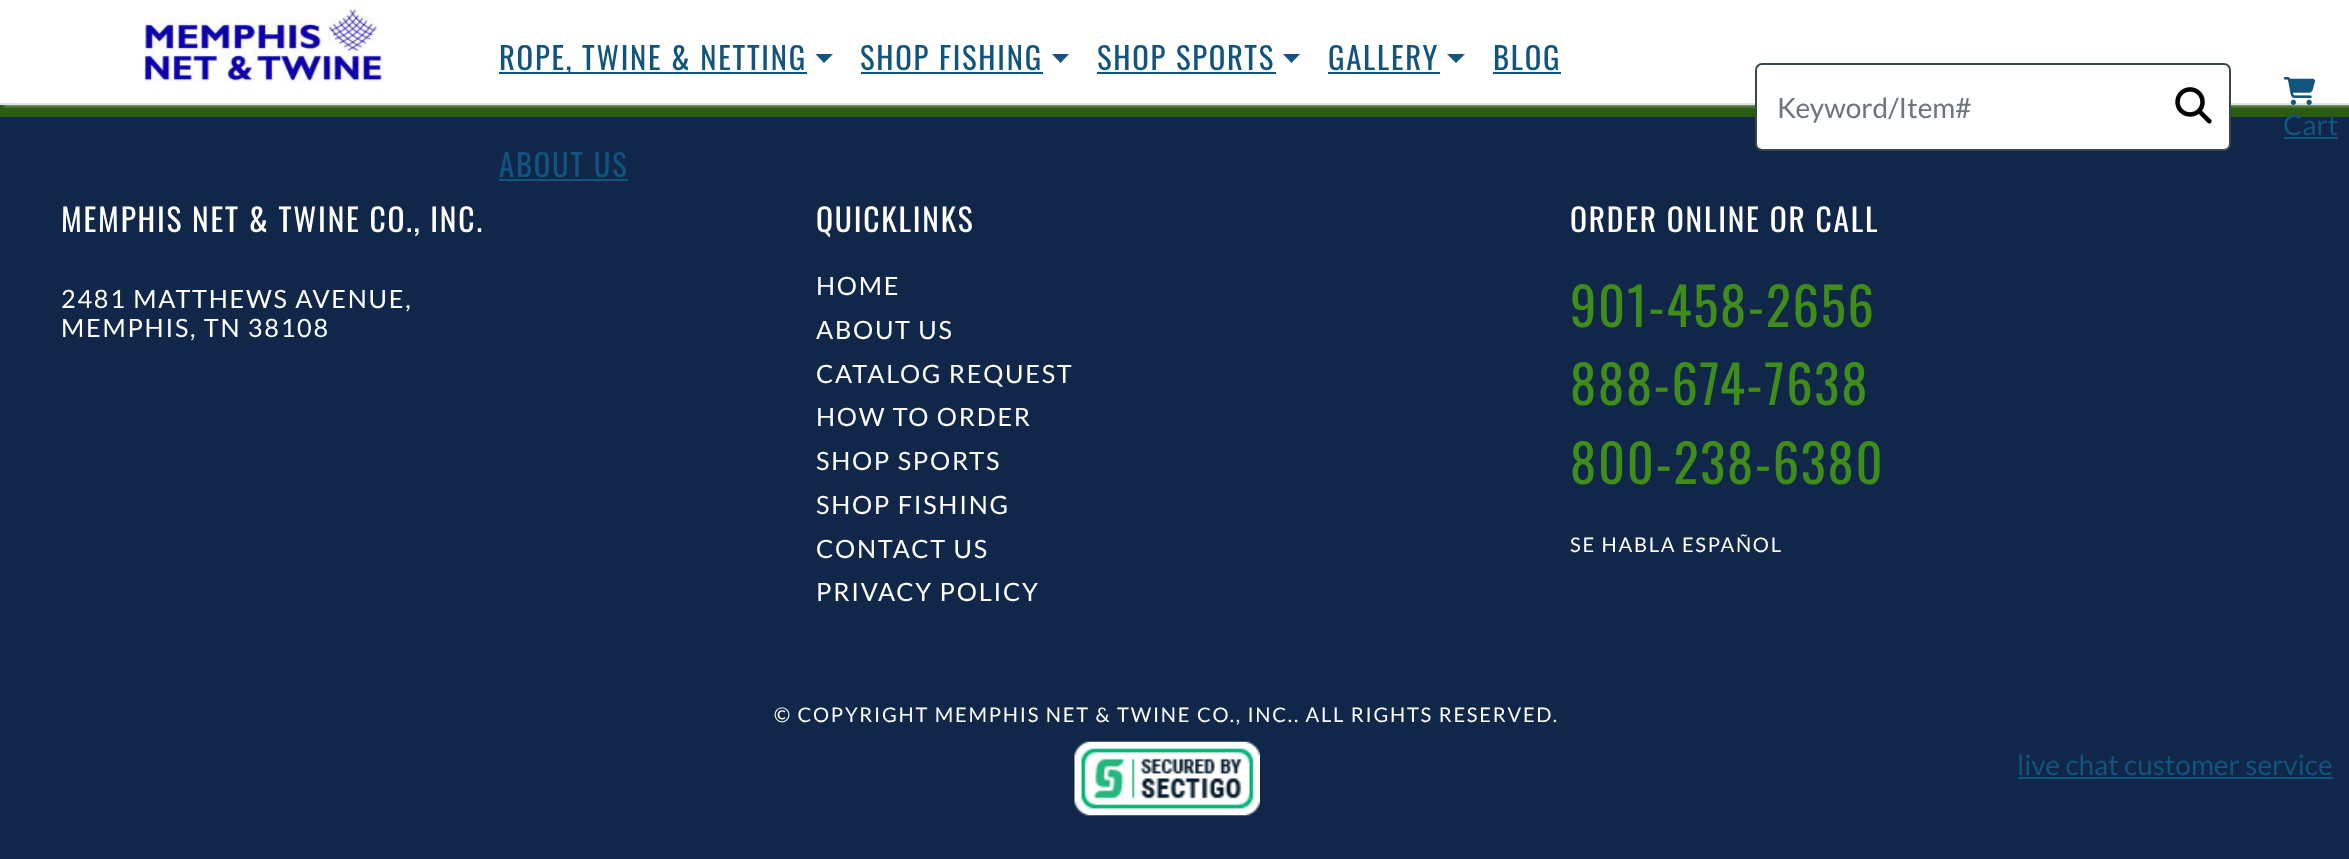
async function draw(canvas) {
	canvas.width = 2349;
	canvas.height = 859;
	const c = canvas.getContext('2d');
	c.miterLimit = 4;
	c.fontKerning = 'normal';
	async function loadImage(src) {
		const img = new Image();
		img.src = src;
		await img.decode();
		return img;
	}

	c.fillStyle = '#295b10';
	c.fillRect(0, 0, 2349, 859);
	c.fillStyle = '#ddd';
	c.filter = 'blur(2px)';
	c.beginPath();
	c.rect(4, 0, 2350, 105);
	c.fill();
	c.filter = 'none';
	c.fillStyle = '#fff';
	c.fillRect(0, 0, 2349, 103);
	c.fillStyle = '#dee2e6';
	c.fillRect(0, 103, 2349, 2);
	c.drawImage(await loadImage('img1.png'), 144, 8, 240, 75);
	c.fillStyle = '#11547e';
	c.fillRect(499, 72, 308, 2);
	c.letterSpacing = '1.75px';
	c.font = '30.75px Oswald';
	c.fillText('ROPE, TWINE & NETTING', 499, 70);
	c.beginPath();
	c.moveTo(815.5, 54);
	c.lineTo(833, 54);
	c.lineTo(824, 63);
	c.closePath();
	c.fill();
	c.fillText('SHOP FISHING', 860, 70);
	c.fillRect(861, 72, 182, 2);
	c.beginPath();
	c.moveTo(1052, 54);
	c.lineTo(1069, 54);
	c.lineTo(1060.5, 63);
	c.closePath();
	c.fill();
	c.fillText('SHOP SPORTS', 1097, 70);
	c.fillRect(1097, 72, 179, 2);
	c.beginPath();
	c.moveTo(1283, 54);
	c.lineTo(1300, 54);
	c.lineTo(1291.5, 63);
	c.closePath();
	c.fill();
	c.fillText('GALLERY', 1328, 70);
	c.fillRect(1328, 72, 112, 2);
	c.beginPath();
	c.moveTo(1447, 54);
	c.lineTo(1465, 54);
	c.lineTo(1456, 63);
	c.closePath();
	c.fill();
	c.fillText('BLOG', 1493, 70);
	c.fillRect(1493, 72, 68, 2);
	c.fillStyle = '#112749';
	c.fillRect(0, 117, 2349, 742);
	c.fillStyle = '#11547e';
	c.fillText('ABOUT US', 499, 177);
	c.fillRect(499, 179, 129, 2);
	c.fillStyle = '#fff';
	c.beginPath();
	c.roundRect(1756, 64, 474, 86, 6);
	c.fill();
	c.strokeStyle = '#39464d';
	c.lineWidth = 2;
	c.stroke();
	c.letterSpacing = '0px';
	c.font = '28px Lato';
	c.fillStyle = '#6c757d';
	c.fillText('Keyword/Item#', 1777, 118);
	c.drawImage(await loadImage('img2.png'), 2175, 87, 37, 37);
	c.drawImage(await loadImage('img3.png'), 2283, 77, 32, 28);
	c.fillStyle = '#11547e';
	c.fillText('Cart', 2283, 135);
	c.fillRect(2284, 137, 54, 2);
	c.letterSpacing = '1.75px';
	c.font = '31.5px Oswald';
	c.fillStyle = '#fff';
	c.fillText('MEMPHIS NET & TWINE CO., INC.', 61, 232);
	c.font = '25.25px Lato';
	c.fillText('2481 MATTHEWS AVENUE,', 61, 308);
	c.fillText('MEMPHIS, TN 38108', 61, 337);
	c.font = '31.5px Oswald';
	c.fillText('QUICKLINKS', 816, 232);
	c.font = '25.25px Lato';
	for (const [text, x, y] of [
		['HOME', 816, 295],
		['ABOUT US', 816, 339],
		['CATALOG REQUEST', 816, 383],
		['HOW TO ORDER', 816, 426],
		['SHOP SPORTS', 816, 470],
		['SHOP FISHING', 816, 514],
		['CONTACT US', 816, 558],
		['PRIVACY POLICY', 816, 601],
	]) {
		c.fillText(text, x, y);
	}
	c.font = '31.5px Oswald';
	c.fillText('ORDER ONLINE OR CALL', 1570, 232);
	c.font = '52.5px Oswald';
	c.fillStyle = '#408c1b';
	for (const [text, x, y] of [
		['901-458-2656', 1570, 327],
		['888-674-7638', 1570, 405],
		['800-238-6380', 1570, 484],
	]) {
		c.fillText(text, x, y);
	}
	c.font = '20.15px Lato';
	c.fillStyle = '#fff';
	c.fillText('SE HABLA ESPAÑOL', 1570, 552);
	c.fillText('© COPYRIGHT MEMPHIS NET & TWINE CO., INC.. ALL RIGHTS RESERVED.', 774, 722);
	c.drawImage(await loadImage('img4.png'), 1074, 741, 186, 75);
	c.letterSpacing = '0px';
	c.font = '28px Lato';
	c.fillStyle = '#11547e';
	c.fillText('live chat customer service', 2017, 775);
	c.fillRect(2018, 777, 315, 2);
}

draw(document.querySelector('canvas'));
